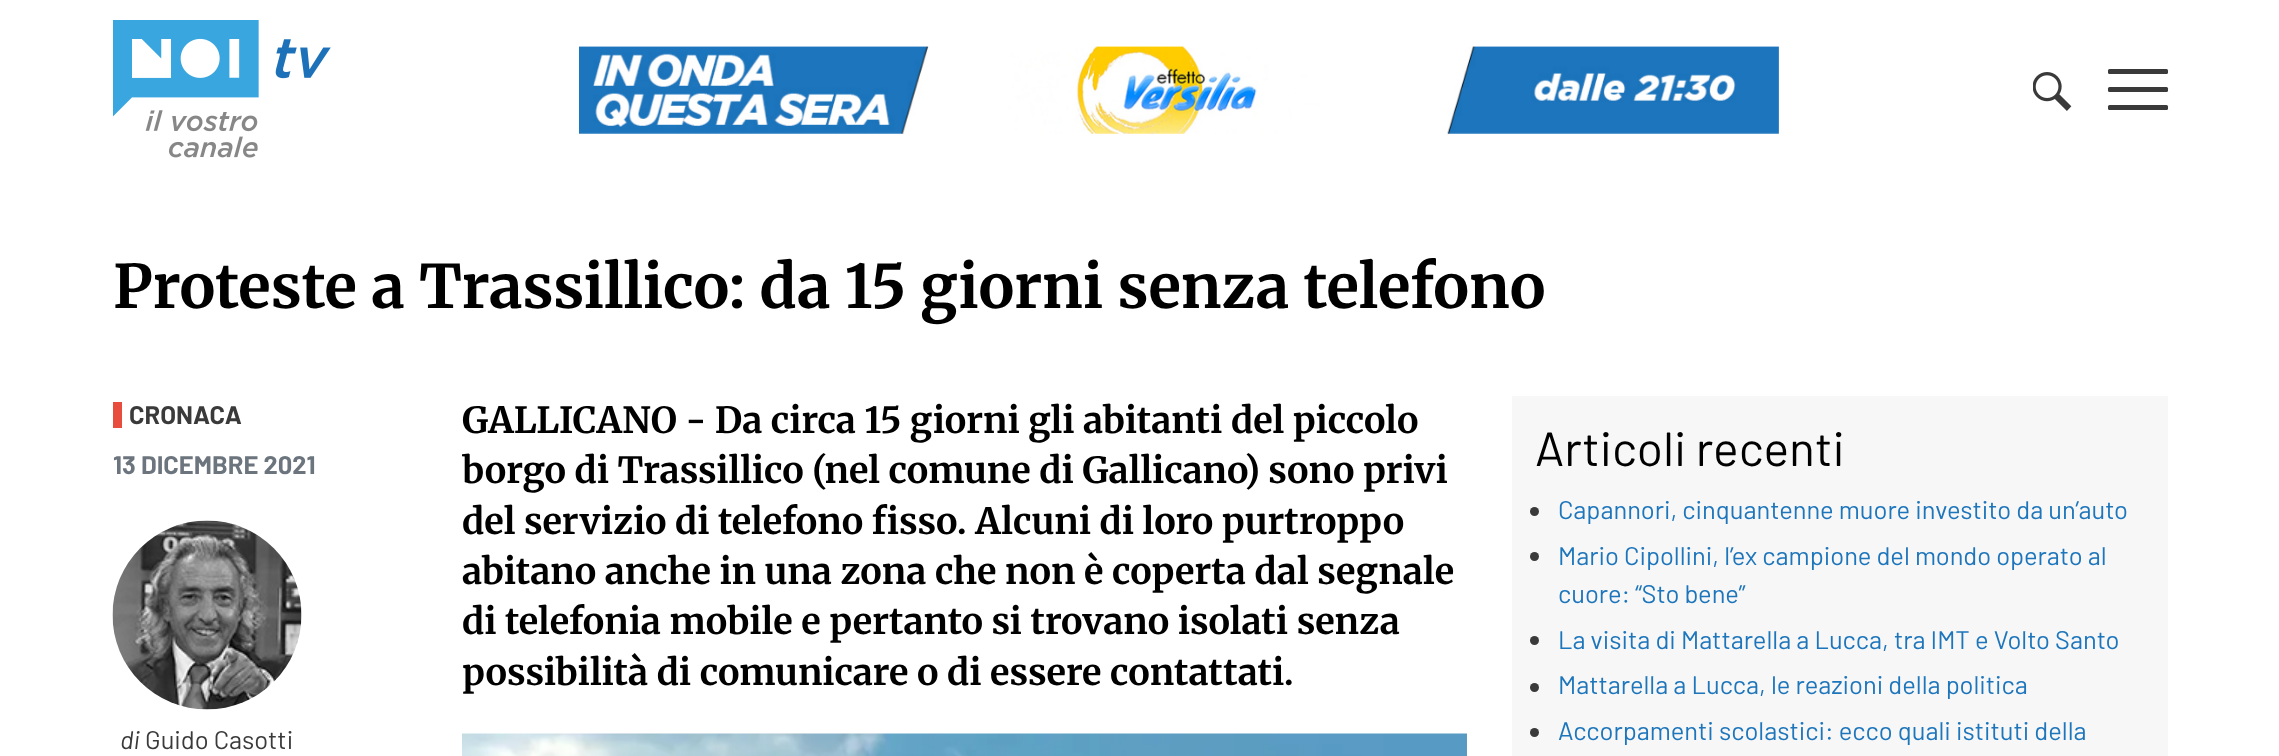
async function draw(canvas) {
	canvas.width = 2279;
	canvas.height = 756;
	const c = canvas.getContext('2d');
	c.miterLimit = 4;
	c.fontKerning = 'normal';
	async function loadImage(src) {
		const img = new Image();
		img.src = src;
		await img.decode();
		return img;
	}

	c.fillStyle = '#fff';
	c.fillRect(0, 0, 2279, 756);
	c.drawImage(await loadImage('img1.png'), 113, 20, 218, 138);
	c.drawImage(await loadImage('img2.png'), 579, 46, 1200, 88);
	c.drawImage(await loadImage('img3.png'), 2033, 72, 39, 39);
	c.fillStyle = '#3a3a3a';
	c.beginPath();
	c.roundRect(2108, 87, 60, 5, 1.5);
	c.fill();
	c.beginPath();
	c.roundRect(2108, 69, 60, 5, 1.5);
	c.fill();
	c.beginPath();
	c.roundRect(2108, 105, 60, 5, 1.5);
	c.fill();
	c.font = '300 60px Merriweather';
	c.fillStyle = '#000';
	c.fillText('Proteste a Trassillico: da 15 giorni senza telefono', 113, 308);
	c.fillStyle = '#e74c3c';
	c.fillRect(113, 402, 9, 26);
	c.font = 'bold 25.5px Barlow';
	c.fillStyle = '#3a3a3a';
	c.fillText('CRONACA', 129, 424);
	c.fillStyle = '#6c757d';
	c.fillText('13 DICEMBRE 2021', 113, 474);
	c.drawImage(await loadImage('img4.png'), 112, 520, 190, 190);
	c.font = 'italic 25.5px Barlow';
	c.fillStyle = '#3a3a3a';
	c.fillText('di', 120, 749);
	c.font = '25.5px Barlow';
	c.fillText('Guido Casotti', 145, 749);
	c.font = '300 36px Merriweather';
	c.fillStyle = '#000';
	for (const [text, x, y] of [
		['GALLICANO - Da circa 15 giorni gli abitanti del piccolo', 462, 433],
		['borgo di Trassillico (nel comune di Gallicano) sono privi', 462, 483],
		['del servizio di telefono fisso. Alcuni di loro purtroppo', 462, 534],
		['abitano anche in una zona che non è coperta dal segnale', 462, 584],
		['di telefonia mobile e pertanto si trovano isolati senza', 462, 634],
		['possibilità di comunicare o di essere contattati.', 462, 685],
	]) {
		c.fillText(text, x, y);
	}
	c.drawImage(await loadImage('img5.png'), 462, 733, 1005, 23);
	c.fillStyle = '#f7f7f7';
	c.fillRect(1512, 396, 656, 360);
	c.font = '48px Barlow';
	c.fillStyle = '#000';
	c.fillText('Articoli recenti', 1535, 466);
	c.fillStyle = '#3a3a3a';
	c.beginPath();
	c.arc(1534.5, 511.5, 4.5, 0, 2 * Math.PI);
	c.fill();
	c.font = '25.5px Barlow';
	c.fillStyle = '#1d75bb';
	c.fillText('Capannori, cinquantenne muore investito da un’auto', 1558, 519);
	c.fillStyle = '#3a3a3a';
	c.beginPath();
	c.arc(1534.5, 556.5, 4.5, 0, 2 * Math.PI);
	c.fill();
	c.fillStyle = '#1d75bb';
	c.fillText('Mario Cipollini, l’ex campione del mondo operato al', 1558, 565);
	c.fillText('cuore: “Sto bene”', 1558, 603);
	c.fillStyle = '#3a3a3a';
	c.beginPath();
	c.arc(1534.5, 640.5, 4.5, 0, 2 * Math.PI);
	c.fill();
	c.fillStyle = '#1d75bb';
	c.fillText('La visita di Mattarella a Lucca, tra IMT e Volto Santo', 1558, 649);
	c.fillStyle = '#3a3a3a';
	c.beginPath();
	c.arc(1534.5, 687.5, 4.5, 0, 2 * Math.PI);
	c.fill();
	c.fillStyle = '#1d75bb';
	c.fillText('Mattarella a Lucca, le reazioni della politica', 1558, 694);
	c.fillStyle = '#3a3a3a';
	c.beginPath();
	c.arc(1534.5, 732.5, 4.5, 0, 2 * Math.PI);
	c.fill();
	c.fillStyle = '#1d75bb';
	c.fillText('Accorpamenti scolastici: ecco quali istituti della', 1558, 740);
}

draw(document.querySelector('canvas'));
